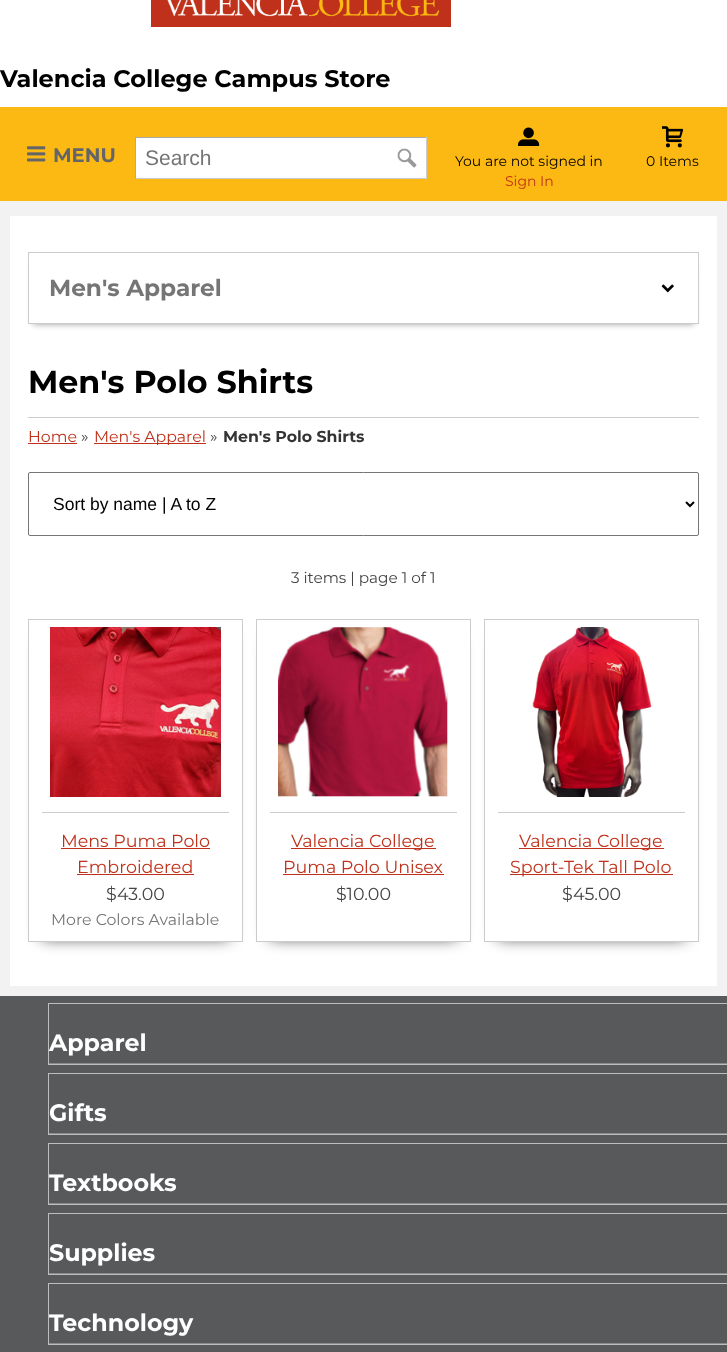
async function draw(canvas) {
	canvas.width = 727;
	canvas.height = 1352;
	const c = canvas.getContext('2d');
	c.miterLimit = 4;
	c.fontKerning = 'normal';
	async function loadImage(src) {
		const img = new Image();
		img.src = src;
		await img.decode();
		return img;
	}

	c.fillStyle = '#fff';
	c.fillRect(0, 0, 727, 1352);
	c.drawImage(await loadImage('img1.png'), 151, 0, 300, 27);
	c.font = 'bold 24px Montserrat';
	c.fillStyle = '#000';
	c.fillText('Valencia College Campus Store', 0, 87);
	c.fillStyle = '#fdb913';
	c.fillRect(0, 107, 727, 94);
	c.drawImage(await loadImage('img2.png'), 27, 146, 19, 16);
	c.font = 'bold 19.5px Montserrat';
	c.fillStyle = '#646569';
	c.fillText('MENU', 53, 162);
	for (const [x, y, w, h, color] of [
		[136, 138, 290, 40, '#fff'],
		[135, 137, 292, 1, '#aaa'],
		[426, 137, 1, 42, '#ccc'],
		[135, 178, 292, 1, '#ccc'],
		[135, 137, 1, 42, '#aaa'],
	]) {
		c.fillStyle = color;
		c.fillRect(x, y, w, h);
	}
	c.font = '21px Liberation Sans';
	c.fillStyle = '#757575';
	c.fillText('Search', 145, 165);
	c.drawImage(await loadImage('img3.png'), 397, 148, 20, 20);
	c.drawImage(await loadImage('img4.png'), 518, 127, 22, 19);
	c.font = '14px Montserrat';
	c.fillStyle = '#000';
	c.fillText('You are not signed in', 455, 166);
	c.fillStyle = '#bf311a';
	c.fillText('Sign In', 505, 186);
	c.drawImage(await loadImage('img5.png'), 662, 126, 22, 22);
	c.fillStyle = '#000';
	c.fillText('0 Items', 646, 166);
	c.fillStyle = '#f2f2f2';
	c.fillRect(0, 201, 727, 5);
	c.strokeStyle = '#f2f2f2';
	c.lineWidth = 10;
	c.strokeRect(5, 211, 717, 780);
	c.fillStyle = '#00000066';
	c.filter = 'blur(3px)';
	c.beginPath();
	c.rect(33, 262, 661, 62);
	c.fill();
	c.filter = 'none';
	c.strokeStyle = '#ccc';
	c.lineWidth = 1;
	c.strokeRect(28.5, 252.5, 670, 71);
	c.fillStyle = '#fff';
	c.fillRect(29, 256, 669, 67);
	c.font = 'bold 23.25px Montserrat';
	c.fillStyle = '#757575';
	c.fillText('Men\'s Apparel', 49, 296);
	c.drawImage(await loadImage('img6.png'), 661, 284, 13, 9);
	c.font = 'bold 31.75px Montserrat';
	c.fillStyle = '#000';
	c.fillText('Men\'s Polo Shirts', 28, 393);
	c.fillStyle = '#ccc';
	c.fillRect(28, 417, 671, 1);
	c.font = '15.75px Montserrat';
	c.fillStyle = '#bf311a';
	c.fillText('Home', 28, 442);
	c.fillRect(28, 443, 49, 1);
	c.fillStyle = '#444';
	c.fillText('»', 81, 442);
	c.fillStyle = '#bf311a';
	c.fillRect(94, 443, 112, 1);
	c.fillText('Men\'s Apparel', 94, 442);
	c.fillStyle = '#444';
	c.fillText('»', 210, 442);
	c.font = 'bold 15.75px Montserrat';
	c.fillStyle = '#333';
	c.fillText('Men\'s Polo Shirts', 223, 442);
	c.beginPath();
	c.roundRect(28.5, 472.5, 670, 63, 1.5);
	c.strokeStyle = '#767676';
	c.stroke();
	c.beginPath();
	c.moveTo(686, 502);
	c.lineTo(690, 506);
	c.lineTo(694, 502);
	c.strokeStyle = '#000';
	c.lineWidth = 2;
	c.stroke();
	c.font = '17.5px Liberation Sans';
	c.fillStyle = '#000';
	c.fillText('Sort by name | A to Z', 53, 510);
	c.font = '15.25px Montserrat';
	c.fillStyle = '#444';
	c.fillText('3 items | page 1 of 1', 291, 583);
	c.save();
	c.beginPath();
	c.moveTo(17, 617);
	c.lineTo(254, 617);
	c.lineTo(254, 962);
	c.lineTo(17, 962);
	c.closePath();
	c.moveTo(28, 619);
	c.lineTo(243, 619);
	c.lineTo(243, 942);
	c.lineTo(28, 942);
	c.closePath();
	c.clip('evenodd');
	c.fillStyle = '#000000e6';
	c.filter = 'blur(8px)';
	c.beginPath();
	c.rect(42, 642, 187, 295);
	c.fill();
	c.filter = 'none';
	c.restore();
	c.strokeStyle = '#ccc';
	c.lineWidth = 1;
	c.strokeRect(28.5, 619.5, 214, 322);
	c.drawImage(await loadImage('img7.png'), 50, 627, 171, 170);
	c.fillStyle = '#ccc';
	c.fillRect(42, 812, 187, 1);
	c.font = '17.5px Montserrat';
	c.fillStyle = '#bf311a';
	c.fillText('Mens Puma Polo', 61, 847);
	c.fillRect(61, 848, 149, 1);
	c.fillText('Embroidered', 77, 873);
	c.fillRect(77, 874, 117, 1);
	c.fillStyle = '#444';
	c.fillText('$43.00', 106, 900);
	c.font = '15.75px Montserrat';
	c.fillStyle = '#757575';
	c.fillText('More Colors Available', 51, 925);
	c.save();
	c.beginPath();
	c.moveTo(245, 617);
	c.lineTo(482, 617);
	c.lineTo(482, 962);
	c.lineTo(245, 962);
	c.closePath();
	c.moveTo(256, 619);
	c.lineTo(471, 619);
	c.lineTo(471, 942);
	c.lineTo(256, 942);
	c.closePath();
	c.clip('evenodd');
	c.fillStyle = '#000000e6';
	c.filter = 'blur(8px)';
	c.beginPath();
	c.rect(270, 642, 187, 295);
	c.fill();
	c.filter = 'none';
	c.restore();
	c.strokeRect(256.5, 619.5, 214, 322);
	c.drawImage(await loadImage('img8.png'), 278, 627, 170, 170);
	c.fillStyle = '#ccc';
	c.fillRect(270, 812, 187, 1);
	c.fillStyle = '#bf311a';
	c.fillRect(291, 848, 145, 1);
	c.font = '17.5px Montserrat';
	c.fillText('Valencia College', 291, 847);
	c.fillText('Puma Polo Unisex', 283, 873);
	c.fillRect(283, 874, 161, 1);
	c.fillStyle = '#444';
	c.fillText('$10.00', 336, 900);
	c.save();
	c.beginPath();
	c.moveTo(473, 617);
	c.lineTo(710, 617);
	c.lineTo(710, 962);
	c.lineTo(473, 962);
	c.closePath();
	c.moveTo(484, 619);
	c.lineTo(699, 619);
	c.lineTo(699, 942);
	c.lineTo(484, 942);
	c.closePath();
	c.clip('evenodd');
	c.fillStyle = '#000000e6';
	c.filter = 'blur(8px)';
	c.beginPath();
	c.rect(498, 642, 187, 295);
	c.fill();
	c.filter = 'none';
	c.restore();
	c.strokeRect(484.5, 619.5, 214, 322);
	c.drawImage(await loadImage('img9.png'), 532, 627, 120, 170);
	c.fillStyle = '#ccc';
	c.fillRect(498, 812, 187, 1);
	c.fillStyle = '#bf311a';
	c.fillRect(519, 848, 145, 1);
	c.fillText('Valencia College', 519, 847);
	c.fillRect(510, 874, 163, 1);
	c.fillText('Sport-Tek Tall Polo', 510, 873);
	c.fillStyle = '#444';
	c.fillText('$45.00', 562, 900);
	c.fillStyle = '#58595b';
	c.fillRect(0, 996, 727, 356);
	c.strokeStyle = '#bcbdbd';
	c.strokeRect(48.5, 1003.5, 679, 61);
	c.font = 'bold 23.75px Montserrat';
	c.fillStyle = '#fff';
	c.fillText('Apparel', 49, 1051);
	c.fillStyle = '#8a8b8c';
	c.fillRect(49, 1063, 678, 1);
	c.strokeRect(48.5, 1073.5, 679, 61);
	c.fillStyle = '#fff';
	c.fillText('Gifts', 49, 1121);
	c.fillStyle = '#8a8b8c';
	c.fillRect(49, 1133, 678, 1);
	c.strokeRect(48.5, 1143.5, 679, 61);
	c.fillStyle = '#fff';
	c.fillText('Textbooks', 49, 1191);
	c.fillStyle = '#8a8b8c';
	c.fillRect(49, 1203, 678, 1);
	c.strokeRect(48.5, 1213.5, 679, 61);
	c.fillStyle = '#fff';
	c.fillText('Supplies', 49, 1261);
	c.fillStyle = '#8a8b8c';
	c.fillRect(49, 1273, 678, 1);
	c.strokeRect(48.5, 1283.5, 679, 61);
	c.fillStyle = '#fff';
	c.fillText('Technology', 49, 1331);
	c.fillStyle = '#8a8b8c';
	c.fillRect(49, 1343, 678, 1);
}

draw(document.querySelector('canvas'));
